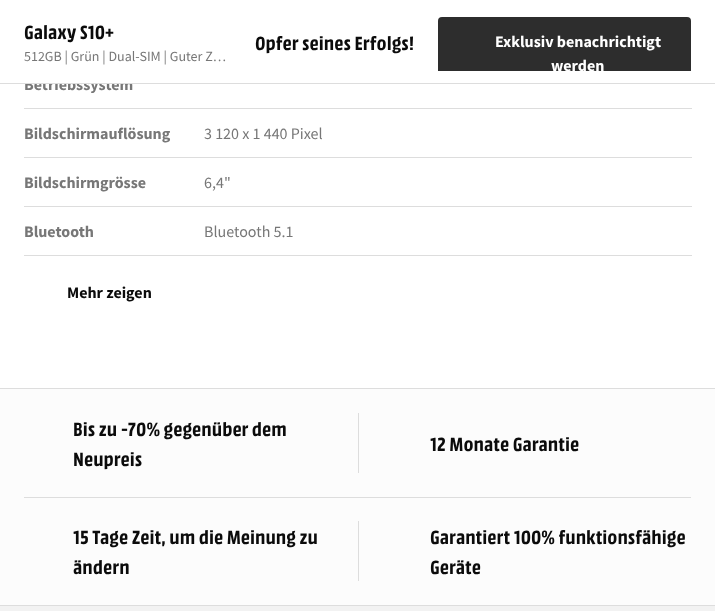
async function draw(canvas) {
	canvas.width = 715;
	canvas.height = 611;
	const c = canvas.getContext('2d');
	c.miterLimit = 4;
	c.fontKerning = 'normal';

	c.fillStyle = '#fff';
	c.fillRect(0, 0, 715, 611);
	c.font = 'bold 16px Source Sans Pro';
	c.fillStyle = '#777';
	c.fillText('Betriebssystem', 24, 90);
	c.fillStyle = '#fff';
	c.fillRect(25, 78, 107, 5);
	c.fillStyle = '#ddd';
	c.fillRect(0, 83, 715, 1);
	c.font = '600 20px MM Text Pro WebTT';
	c.fillStyle = '#0b0b0b';
	c.fillText('Galaxy S10+', 24, 39);
	c.font = '14px Source Sans Pro';
	c.fillStyle = '#777';
	c.fillText('512GB | Grün | Dual-SIM | Guter Z…', 24, 61);
	c.font = '600 20px MM Text Pro WebTT';
	c.fillStyle = '#0b0b0b';
	c.fillText('Opfer seines Erfolgs!', 255, 50);
	c.fillStyle = '#2d2d2d';
	c.beginPath();
	c.roundRect(438, 17, 253, 54, [4, 4, 0, 0]);
	c.fill();
	c.font = 'bold 16px Source Sans Pro';
	c.fillStyle = '#fff';
	c.fillText('Exklusiv benachrichtigt', 495, 47);
	c.save();
	c.beginPath();
	c.rect(434, 13, 261, 58);
	c.clip();
	c.fillText('werden', 551, 71);
	c.restore();
	c.fillStyle = '#ddd';
	c.fillRect(24, 108, 668, 1);
	c.fillStyle = '#777';
	c.fillText('Bildschirmauflösung', 24, 139);
	c.fillStyle = '#ddd';
	c.fillRect(24, 157, 668, 1);
	c.font = '16px Source Sans Pro';
	c.fillStyle = '#777';
	c.fillText('3 120 x 1 440 Pixel', 204, 139);
	c.font = 'bold 16px Source Sans Pro';
	c.fillText('Bildschirmgrösse', 24, 188);
	c.fillStyle = '#ddd';
	c.fillRect(24, 206, 668, 1);
	c.font = '16px Source Sans Pro';
	c.fillStyle = '#777';
	c.fillText('6,4"', 204, 188);
	c.font = 'bold 16px Source Sans Pro';
	c.fillText('Bluetooth', 24, 237);
	c.fillStyle = '#ddd';
	c.fillRect(24, 255, 668, 1);
	c.font = '16px Source Sans Pro';
	c.fillStyle = '#777';
	c.fillText('Bluetooth 5.1', 204, 237);
	c.font = 'bold 16px Source Sans Pro';
	c.fillStyle = '#0b0b0b';
	c.fillText('Mehr zeigen', 67, 298);
	for (const [x, y, w, h, color] of [
		[0, 606, 715, 5, '#f2f2f2'],
		[0, 389, 715, 216, '#fcfcfc'],
		[0, 388, 715, 1, '#ddd'],
		[0, 605, 715, 1, '#ddd'],
	]) {
		c.fillStyle = color;
		c.fillRect(x, y, w, h);
	}
	c.font = '600 20px MM Text Pro WebTT';
	c.fillStyle = '#0b0b0b';
	c.fillText('Bis zu -70% gegenüber dem', 73, 436);
	c.fillText('Neupreis', 73, 466);
	c.fillStyle = '#ddd';
	c.fillRect(358, 413, 1, 60);
	c.fillStyle = '#0b0b0b';
	c.fillText('12 Monate Garantie', 430, 451);
	c.fillStyle = '#ddd';
	c.fillRect(24, 497, 667, 1);
	c.fillStyle = '#0b0b0b';
	c.fillText('15 Tage Zeit, um die Meinung zu', 73, 544);
	c.fillText('ändern', 73, 574);
	c.fillStyle = '#ddd';
	c.fillRect(358, 521, 1, 60);
	c.fillStyle = '#0b0b0b';
	c.fillText('Garantiert 100% funktionsfähige', 430, 544);
	c.fillText('Geräte', 430, 574);
}

draw(document.querySelector('canvas'));
